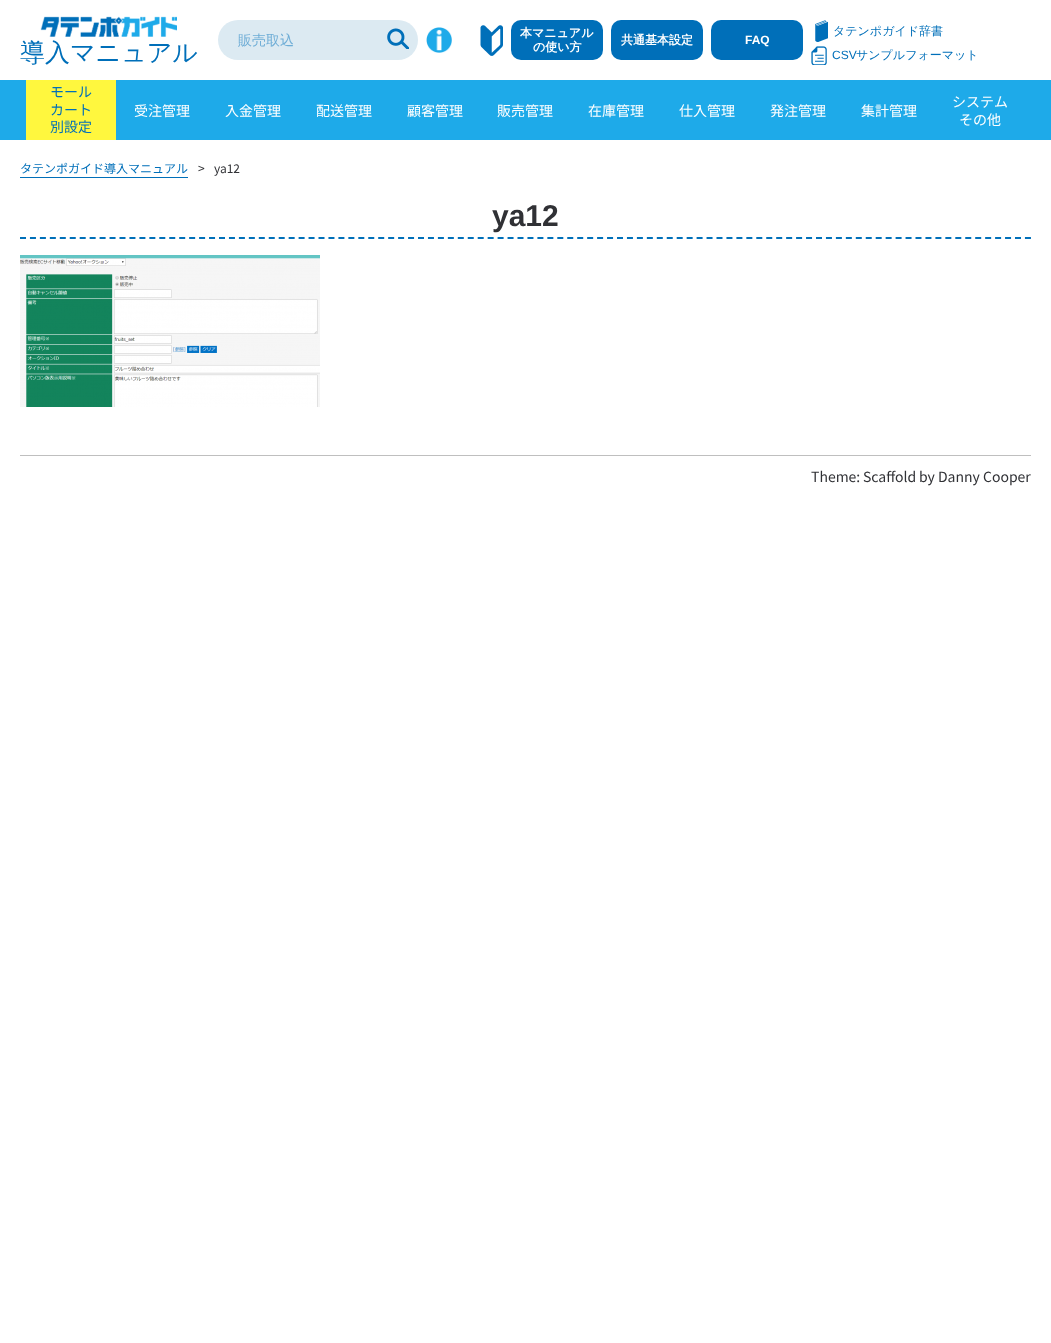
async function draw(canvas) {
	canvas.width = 1051;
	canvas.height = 1343;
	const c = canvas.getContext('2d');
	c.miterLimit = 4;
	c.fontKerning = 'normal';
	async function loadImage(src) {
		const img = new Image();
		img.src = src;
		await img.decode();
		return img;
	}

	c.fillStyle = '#fff';
	c.fillRect(0, 0, 1051, 1343);
	c.drawImage(await loadImage('img1.png'), 40, 16, 137, 21);
	c.font = '500 25px WenQuanYi Zen Hei';
	c.fillStyle = '#006fb9';
	c.fillText('導入マニュアル', 20, 61);
	c.fillStyle = '#dceaf2';
	c.beginPath();
	c.roundRect(218, 20, 200, 40, 20);
	c.fill();
	c.font = '500 14px WenQuanYi Zen Hei';
	c.fillStyle = '#6eadd6';
	c.fillText('販売取込', 238, 45);
	c.drawImage(await loadImage('img2.png'), 387, 28, 22, 21);
	c.drawImage(await loadImage('img3.png'), 426, 27, 26, 26);
	c.drawImage(await loadImage('img4.png'), 480, 25, 23, 31);
	c.fillStyle = '#006fb9';
	c.beginPath();
	c.roundRect(511, 20, 92, 40, 10);
	c.fill();
	c.font = 'bold 12px WenQuanYi Zen Hei';
	c.fillStyle = '#fff';
	c.fillText('本マニュアル', 520, 37);
	c.fillText('の使い方', 533, 51);
	c.fillStyle = '#006fb9';
	c.beginPath();
	c.roundRect(611, 20, 92, 40, 10);
	c.fill();
	c.fillStyle = '#fff';
	c.fillText('共通基本設定', 621, 44);
	c.fillStyle = '#006fb9';
	c.beginPath();
	c.roundRect(711, 20, 92, 40, 10);
	c.fill();
	c.font = 'bold 12px Liberation Sans';
	c.fillStyle = '#fff';
	c.fillText('FAQ', 745, 44);
	c.drawImage(await loadImage('img5.png'), 815, 20, 13, 22);
	c.font = '500 12px WenQuanYi Zen Hei';
	c.fillStyle = '#006fb9';
	c.fillText('タテンポガイド辞書', 833, 35);
	c.drawImage(await loadImage('img6.png'), 811, 46, 16, 19);
	c.font = '12px Liberation Sans';
	c.fillText('CSV', 832, 59);
	c.font = '500 12px WenQuanYi Zen Hei';
	c.fillText('サンプルフォーマット', 856, 59);
	c.fillStyle = '#1eaae9';
	c.fillRect(0, 80, 1051, 60);
	c.fillStyle = '#fff73e';
	c.fillRect(26, 80, 90, 60);
	c.font = '14px Noto Sans JP';
	c.fillStyle = '#006fb9';
	for (const [text, x, y] of [
		['モール', 50, 97],
		['カート', 50, 115],
		['別設定', 50, 132],
	]) {
		c.fillText(text, x, y);
	}
	c.fillStyle = '#fff';
	for (const [text, x, y] of [
		['受注管理', 134, 116],
		['入金管理', 225, 116],
		['配送管理', 316, 116],
		['顧客管理', 407, 116],
		['販売管理', 497, 116],
		['在庫管理', 588, 116],
		['仕入管理', 679, 116],
		['発注管理', 770, 116],
		['集計管理', 861, 116],
		['システム', 952, 107],
		['その他', 959, 125],
	]) {
		c.fillText(text, x, y);
	}
	c.font = '12px Noto Sans JP';
	c.fillStyle = '#006fb9';
	c.fillText('タテンポガイド導入マニュアル', 20, 173);
	c.fillRect(20, 177, 168, 1);
	c.fillStyle = '#303135';
	c.fillText('>', 198, 173);
	c.fillText('ya12', 214, 173);
	c.beginPath();
	c.moveTo(20, 238);
	c.lineTo(1031, 238);
	c.strokeStyle = '#006fb9';
	c.lineWidth = 2;
	c.setLineDash([6, 3.95]);
	c.stroke();
	c.font = 'bold 30px Liberation Sans';
	c.fillText('ya12', 492, 226);
	c.drawImage(await loadImage('img7.png'), 20, 255, 300, 152);
	c.fillStyle = '#bfbfbf';
	c.fillRect(20, 455, 1011, 1);
	c.font = '14px Noto Sans JP';
	c.fillStyle = '#303135';
	for (const [text, x, y] of [
		['Theme:', 811, 482],
		['Scaffold', 863, 482],
		['by Danny Cooper', 919, 482],
	]) {
		c.fillText(text, x, y);
	}
}

draw(document.querySelector('canvas'));
